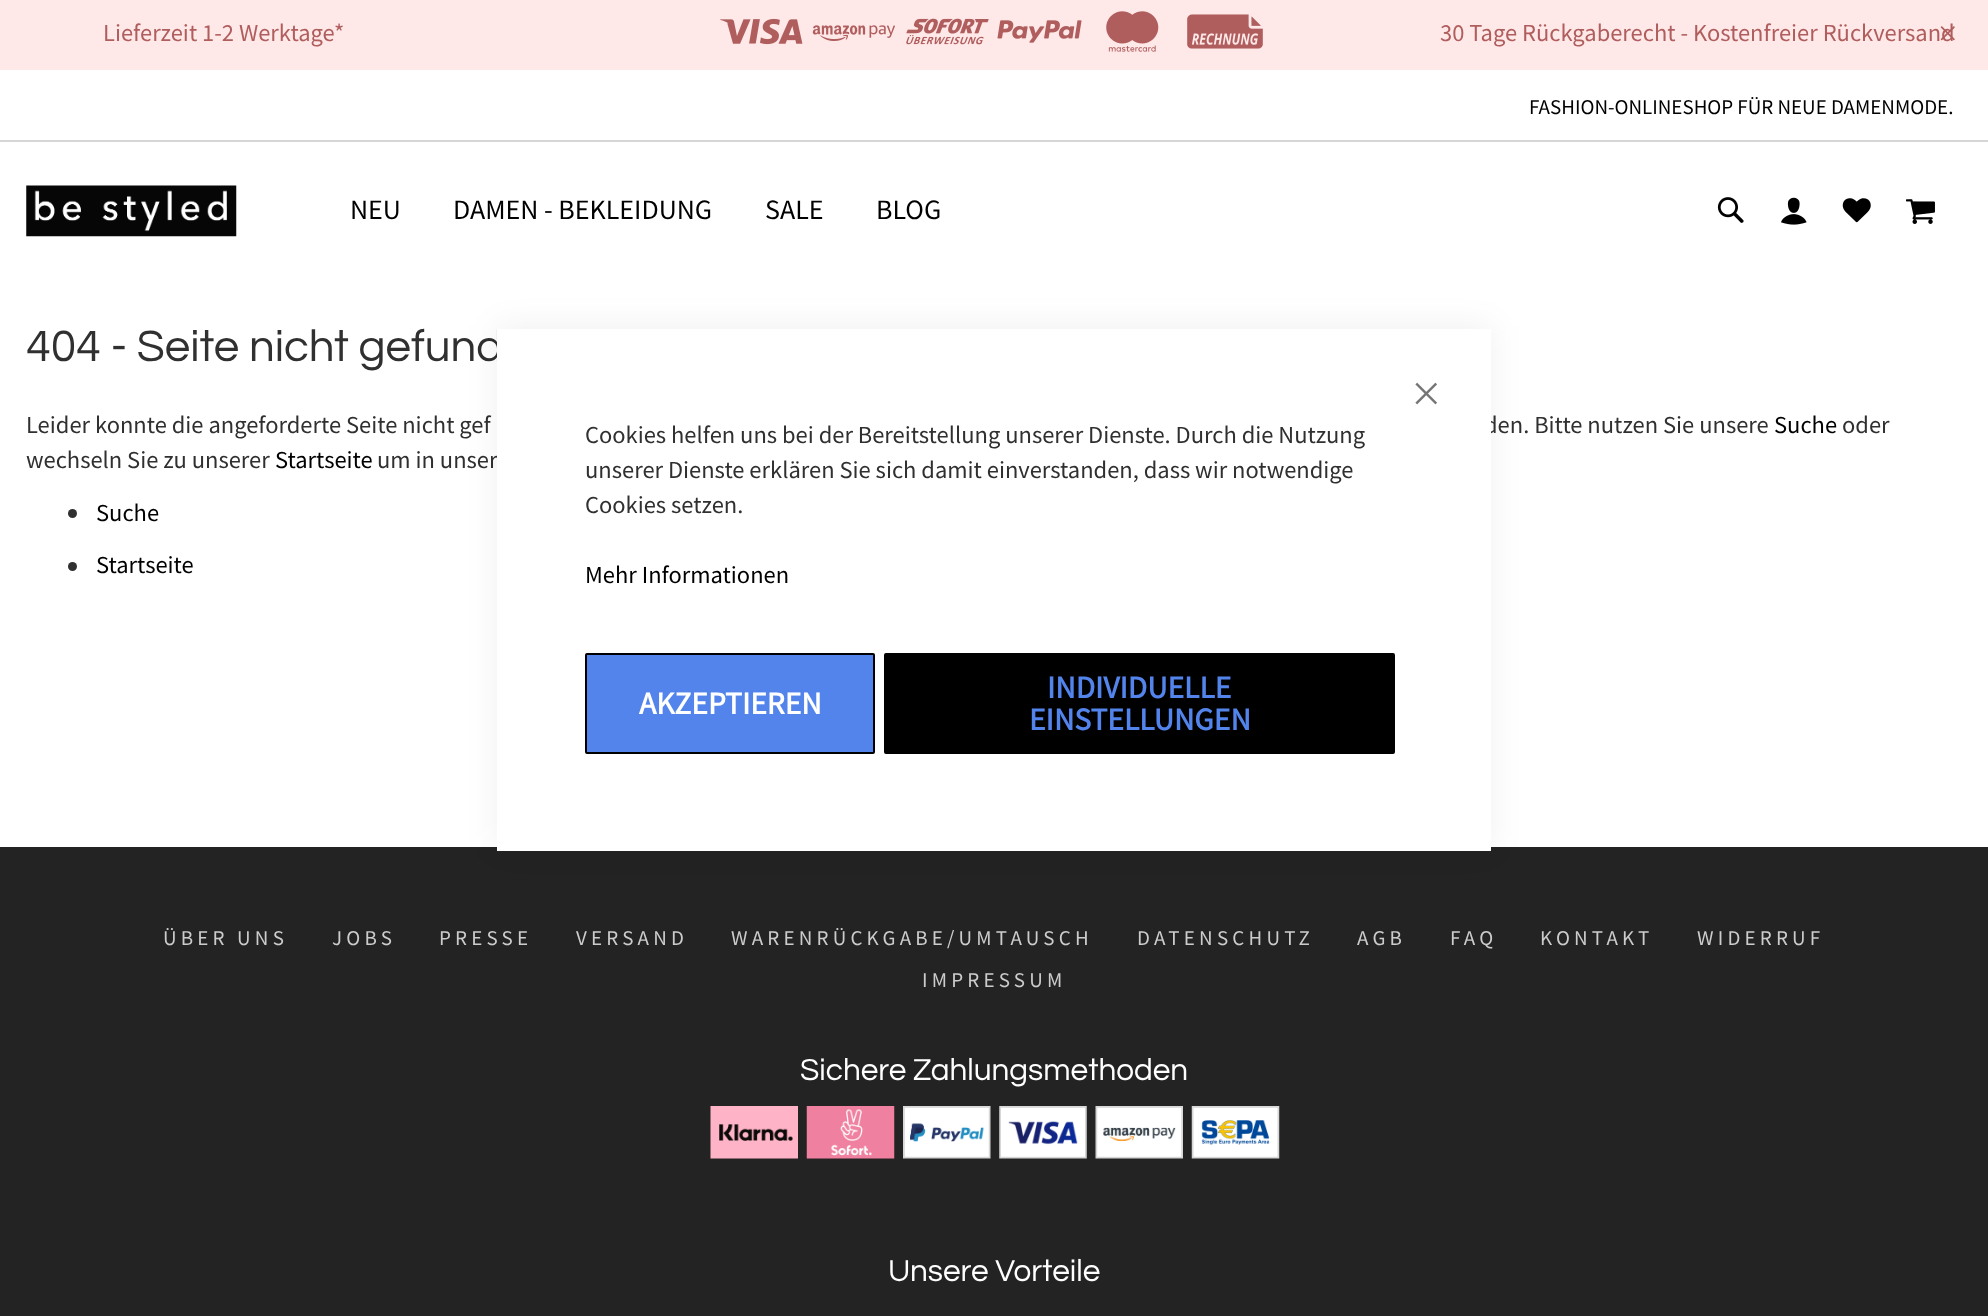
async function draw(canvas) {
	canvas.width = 1988;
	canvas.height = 1316;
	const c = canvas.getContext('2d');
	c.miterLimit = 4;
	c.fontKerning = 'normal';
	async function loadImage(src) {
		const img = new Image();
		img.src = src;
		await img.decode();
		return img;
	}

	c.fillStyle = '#fff';
	c.fillRect(0, 0, 1988, 1316);
	c.fillStyle = '#ffe8e8';
	c.fillRect(0, 0, 1988, 70);
	c.font = '24.5px Source Sans Pro';
	c.fillStyle = '#b05d5d';
	c.fillText('Lieferzeit 1-2 Werktage*', 103, 41);
	c.drawImage(await loadImage('img1.png'), 720, 18, 83, 27);
	c.drawImage(await loadImage('img2.png'), 812, 25, 83, 16);
	c.drawImage(await loadImage('img3.png'), 906, 18, 83, 27);
	c.drawImage(await loadImage('img4.png'), 997, 20, 85, 23);
	c.drawImage(await loadImage('img5.png'), 1106, 11, 53, 41);
	c.drawImage(await loadImage('img6.png'), 1187, 14, 76, 35);
	c.fillText('30 Tage Rückgaberecht - Kostenfreier Rückversand', 1440, 41);
	c.drawImage(await loadImage('img7.png'), 1940, 26, 15, 15);
	c.fillStyle = '#d6d6d6';
	c.fillRect(0, 140, 1988, 2);
	c.font = '21px Source Sans Pro';
	c.fillStyle = '#000';
	c.fillText('FASHION-ONLINESHOP FÜR NEUE DAMENMODE.', 1529, 114);
	c.drawImage(await loadImage('img8.png'), 26, 185, 211, 52);
	c.font = '28px Source Sans Pro';
	for (const [text, x, y] of [
		['NEU', 350, 219],
		['DAMEN - BEKLEIDUNG', 453, 219],
		['SALE', 765, 219],
		['BLOG', 876, 219],
	]) {
		c.fillText(text, x, y);
	}
	c.drawImage(await loadImage('img9.png'), 1717, 197, 27, 26);
	c.drawImage(await loadImage('img10.png'), 1781, 197, 26, 28);
	c.drawImage(await loadImage('img11.png'), 1842, 198, 29, 25);
	c.drawImage(await loadImage('img12.png'), 1906, 199, 29, 25);
	c.font = '45.5px Questrial';
	c.fillStyle = '#303030';
	c.fillText('404 - Seite nicht gefund', 26, 361);
	c.font = '24.5px Source Sans Pro';
	c.fillText('Leider konnte die angeforderte Seite nicht gef', 26, 433);
	c.fillText('den. Bitte nutzen Sie unsere', 1484, 433);
	c.fillStyle = '#000';
	c.fillText('Suche', 1774, 433);
	c.fillStyle = '#303030';
	c.fillText('oder', 1842, 433);
	c.fillText('wechseln Sie zu unserer', 26, 468);
	c.fillStyle = '#000';
	c.fillText('Startseite', 275, 468);
	c.fillStyle = '#303030';
	c.fillText('um in unser', 377, 468);
	c.beginPath();
	c.arc(72.5, 513.5, 4.5, 0, 2 * Math.PI);
	c.fill();
	c.fillStyle = '#000';
	c.fillText('Suche', 96, 521);
	c.fillStyle = '#303030';
	c.beginPath();
	c.arc(72.5, 566.5, 4.5, 0, 2 * Math.PI);
	c.fill();
	c.fillStyle = '#000';
	c.fillText('Startseite', 96, 573);
	c.fillStyle = '#232323';
	c.fillRect(0, 847, 1988, 469);
	c.letterSpacing = '4.2px';
	c.font = '21px Source Sans Pro';
	c.fillStyle = '#ccc';
	for (const [text, x, y] of [
		['ÜBER UNS', 163, 945],
		['JOBS', 332, 945],
		['PRESSE', 439, 945],
		['VERSAND', 576, 945],
		['WARENRÜCKGABE/UMTAUSCH', 731, 945],
		['DATENSCHUTZ', 1137, 945],
		['AGB', 1357, 945],
		['FAQ', 1450, 945],
		['KONTAKT', 1540, 945],
		['WIDERRUF', 1697, 945],
		['IMPRESSUM', 922, 987],
	]) {
		c.fillText(text, x, y);
	}
	c.letterSpacing = '0px';
	c.font = '31.5px Questrial';
	c.fillStyle = '#fff';
	c.fillText('Sichere Zahlungsmethoden', 800, 1080);
	c.drawImage(await loadImage('img13.png'), 710, 1106, 88, 53);
	c.drawImage(await loadImage('img14.png'), 806, 1106, 89, 53);
	c.drawImage(await loadImage('img15.png'), 903, 1106, 88, 53);
	c.drawImage(await loadImage('img16.png'), 999, 1106, 88, 53);
	c.drawImage(await loadImage('img17.png'), 1095, 1106, 88, 53);
	c.drawImage(await loadImage('img18.png'), 1191, 1106, 89, 53);
	c.fillText('Unsere Vorteile', 888, 1281);
	c.fillStyle = '#0000000f';
	c.filter = 'blur(16px)';
	c.beginPath();
	c.rect(497, 326, 994, 521);
	c.fill();
	c.filter = 'none';
	c.fillStyle = '#fff';
	c.fillRect(497, 329, 994, 522);
	c.drawImage(await loadImage('img19.png'), 1415, 382, 22, 23);
	c.font = '24.5px Source Sans Pro';
	c.fillStyle = '#303030';
	for (const [text, x, y] of [
		['Cookies helfen uns bei der Bereitstellung unserer Dienste. Durch die Nutzung', 585, 443],
		['unserer Dienste erklären Sie sich damit einverstanden, dass wir notwendige', 585, 478],
		['Cookies setzen.', 585, 513],
	]) {
		c.fillText(text, x, y);
	}
	c.fillStyle = '#000';
	c.fillText('Mehr Informationen', 585, 583);
	c.fillStyle = '#5384ec';
	c.beginPath();
	c.roundRect(586, 654, 288, 99, 1);
	c.fill();
	c.strokeStyle = '#000';
	c.lineWidth = 2;
	c.stroke();
	c.font = 'bold 31.5px Source Sans Pro';
	c.fillStyle = '#fff';
	c.fillText('AKZEPTIEREN', 639, 714);
	c.fillStyle = '#000';
	c.beginPath();
	c.roundRect(885, 654, 509, 99, 1);
	c.fill();
	c.stroke();
	c.fillStyle = '#5384ec';
	c.fillText('INDIVIDUELLE', 1047, 698);
	c.fillText('EINSTELLUNGEN', 1029, 730);
}

draw(document.querySelector('canvas'));
